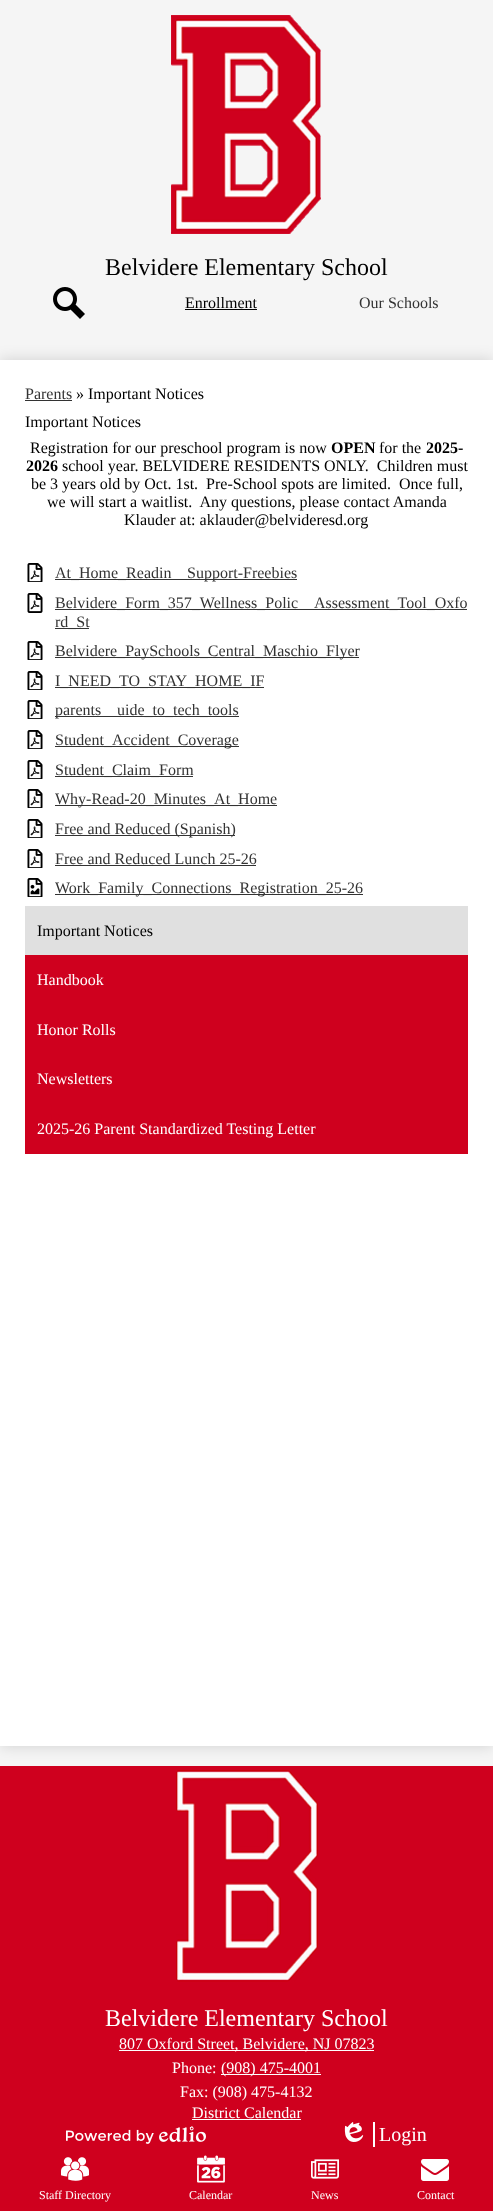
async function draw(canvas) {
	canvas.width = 493;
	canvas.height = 2211;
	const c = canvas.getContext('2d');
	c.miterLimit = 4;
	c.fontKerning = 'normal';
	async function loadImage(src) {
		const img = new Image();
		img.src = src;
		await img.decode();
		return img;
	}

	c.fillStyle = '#f5f5f5';
	c.fillRect(0, 0, 493, 2211);
	c.drawImage(await loadImage('img1.png'), 171, 15, 150, 219);
	c.font = '24px Liberation Serif';
	c.fillStyle = '#000';
	c.fillText('Belvidere Elementary School', 105, 275);
	c.drawImage(await loadImage('img2.png'), 53, 287, 32, 32);
	c.font = '16px Liberation Serif';
	c.fillText('Enrollment', 185, 308);
	c.fillRect(185, 309, 72, 1);
	c.fillStyle = '#333';
	c.fillText('Our Schools', 359, 308);
	c.fillStyle = '#cf001e';
	c.fillRect(0, 1766, 493, 445);
	c.fillStyle = '#00000026';
	c.filter = 'blur(7.5px)';
	c.beginPath();
	c.rect(0, 360, 493, 1386);
	c.fill();
	c.filter = 'none';
	c.fillStyle = '#fff';
	c.fillRect(0, 360, 493, 1386);
	c.fillStyle = '#333';
	c.fillText('Parents', 25, 399);
	c.fillRect(25, 400, 47, 1);
	c.fillStyle = '#000';
	for (const [text, x, y] of [
		['» Important Notices', 76, 399],
		['Important Notices', 25, 427],
		['Registration for our preschool program is now', 30, 453],
	]) {
		c.fillText(text, x, y);
	}
	c.font = 'bold 16px Liberation Serif';
	c.fillText('OPEN', 331, 453);
	c.font = '16px Liberation Serif';
	c.fillText('for the', 379, 453);
	c.font = 'bold 16px Liberation Serif';
	c.fillText('2025-', 426, 453);
	c.fillText('2026', 26, 471);
	c.font = '16px Liberation Serif';
	for (const [text, x, y] of [
		['school year. BELVIDERE RESIDENTS ONLY.  Children must', 62, 471],
		['be 3 years old by Oct. 1st.  Pre-School spots are limited.  Once full,', 31, 489],
		['we will start a waitlist.  Any questions, please contact Amanda', 47, 507],
		['Klauder at: aklauder@belvideresd.org', 124, 525],
	]) {
		c.fillText(text, x, y);
	}
	c.drawImage(await loadImage('img3.png'), 27, 563, 16, 19);
	c.fillStyle = '#333';
	c.fillRect(55, 579, 242, 1);
	c.fillText('At_Home_Readin', 55, 578);
	c.fillText('Support-Freebies', 187, 578);
	c.drawImage(await loadImage('img4.png'), 27, 593, 16, 20);
	c.fillRect(55, 609, 412, 1);
	c.fillText('Belvidere_Form_357_Wellness_Polic', 55, 608);
	c.fillText('Assessment_Tool_Oxfo', 314, 608);
	c.fillRect(55, 628, 34, 1);
	c.fillText('rd_St', 55, 627);
	c.drawImage(await loadImage('img3.png'), 27, 641, 16, 19);
	c.fillRect(55, 657, 304, 1);
	c.fillText('Belvidere_PaySchools_Central_Maschio_Flyer', 55, 656);
	c.drawImage(await loadImage('img3.png'), 27, 671, 16, 19);
	c.fillRect(55, 687, 209, 1);
	c.fillText('I_NEED_TO_STAY_HOME_IF', 55, 686);
	c.drawImage(await loadImage('img3.png'), 27, 700, 16, 19);
	c.fillRect(55, 716, 184, 1);
	c.fillText('parents', 55, 715);
	c.fillText('uide_to_tech_tools', 117, 715);
	c.drawImage(await loadImage('img3.png'), 27, 730, 16, 19);
	c.fillRect(55, 746, 184, 1);
	c.fillText('Student_Accident_Coverage', 55, 745);
	c.drawImage(await loadImage('img3.png'), 27, 760, 16, 19);
	c.fillRect(55, 776, 138, 1);
	c.fillText('Student_Claim_Form', 55, 775);
	c.drawImage(await loadImage('img3.png'), 27, 789, 16, 19);
	c.fillRect(55, 805, 222, 1);
	c.fillText('Why-Read-20_Minutes_At_Home', 55, 804);
	c.drawImage(await loadImage('img3.png'), 27, 819, 16, 19);
	c.fillRect(55, 835, 180, 1);
	c.fillText('Free and Reduced (Spanish)', 55, 834);
	c.drawImage(await loadImage('img3.png'), 27, 849, 16, 19);
	c.fillText('Free and Reduced Lunch 25-26', 55, 864);
	c.fillRect(55, 865, 201, 1);
	c.drawImage(await loadImage('img5.png'), 27, 878, 16, 19);
	c.fillRect(55, 894, 308, 1);
	c.fillText('Work_Family_Connections_Registration_25-26', 55, 893);
	c.fillStyle = '#cf001e';
	c.fillRect(25, 955, 443, 199);
	c.fillStyle = '#e0e0e0';
	c.fillRect(25, 906, 443, 49);
	c.fillStyle = '#000';
	c.fillText('Important Notices', 37, 936);
	c.fillStyle = '#fff';
	for (const [text, x, y] of [
		['Handbook', 37, 985],
		['Honor Rolls', 37, 1035],
		['Newsletters', 37, 1084],
		['2025-26 Parent Standardized Testing Letter', 37, 1134],
	]) {
		c.fillText(text, x, y);
	}
	c.drawImage(await loadImage('img6.png'), 176, 1770, 142, 212);
	c.font = '24px Liberation Serif';
	c.fillText('Belvidere Elementary School', 105, 2026);
	c.fillRect(119, 2050, 255, 1);
	c.font = '16px Liberation Serif';
	c.fillText('807 Oxford Street, Belvidere, NJ 07823', 119, 2049);
	c.fillText('Phone:', 172, 2073);
	c.fillRect(221, 2074, 100, 1);
	for (const [text, x, y] of [
		['(908) 475-4001', 221, 2073],
		['Fax: (908) 475-4132', 180, 2097],
		['District Calendar', 192, 2118],
	]) {
		c.fillText(text, x, y);
	}
	c.fillRect(192, 2119, 109, 1);
	c.drawImage(await loadImage('img7.png'), 66, 2126, 140, 18);
	c.fillRect(373, 2122, 2, 25);
	c.drawImage(await loadImage('img8.png'), 344, 2122, 20, 20);
	c.font = '20px Liberation Serif';
	c.fillText('Login', 379, 2141);
	c.drawImage(await loadImage('img9.png'), 61, 2157, 28, 24);
	c.font = '12px Liberation Serif';
	c.fillText('Staff Directory', 39, 2199);
	c.drawImage(await loadImage('img10.png'), 197, 2155, 28, 28);
	c.fillText('Calendar', 189, 2199);
	c.drawImage(await loadImage('img11.png'), 311, 2159, 28, 20);
	c.fillText('News', 311, 2199);
	c.drawImage(await loadImage('img12.png'), 421, 2159, 28, 22);
	c.fillText('Contact', 417, 2199);
}

draw(document.querySelector('canvas'));
